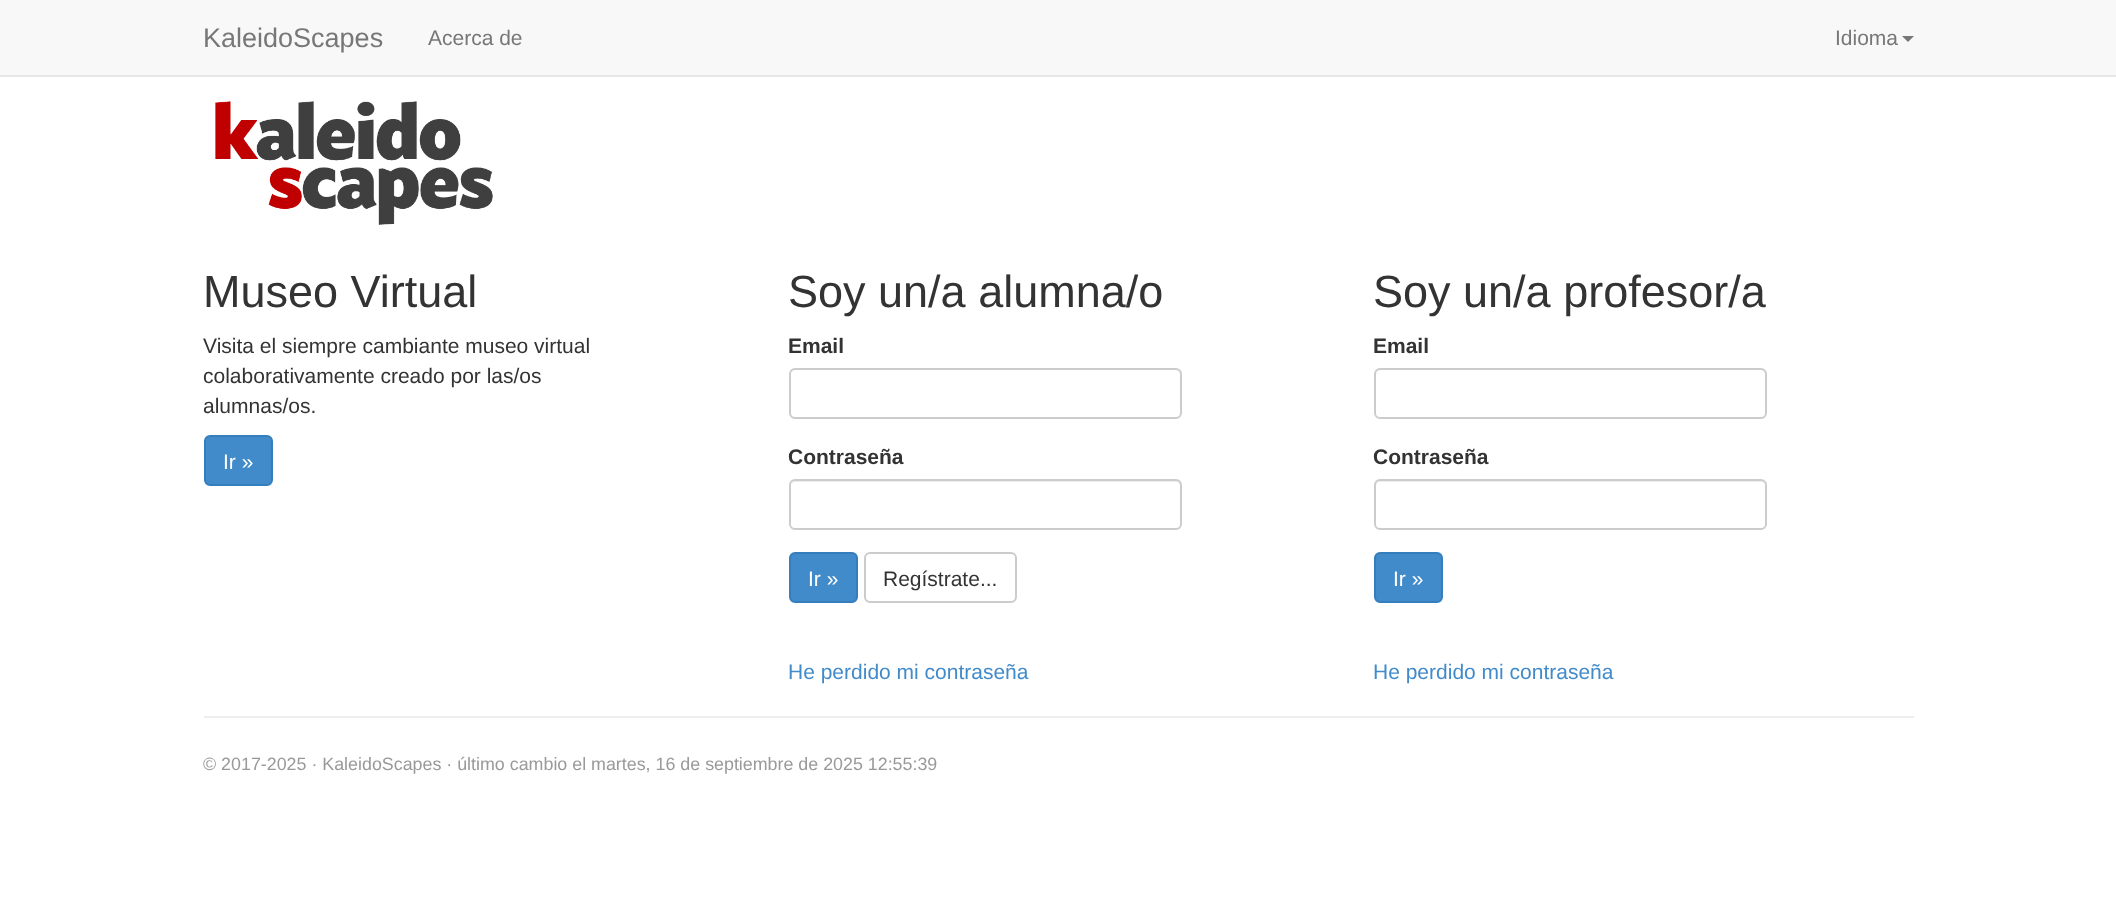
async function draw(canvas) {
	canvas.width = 2116;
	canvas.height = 914;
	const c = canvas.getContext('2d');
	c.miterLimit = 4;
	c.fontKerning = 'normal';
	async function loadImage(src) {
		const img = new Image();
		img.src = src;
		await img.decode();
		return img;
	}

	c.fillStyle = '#fff';
	c.fillRect(0, 0, 2116, 914);
	c.fillStyle = '#f8f8f8';
	c.fillRect(0, 0, 2116, 75);
	c.fillStyle = '#e7e7e7';
	c.fillRect(0, 75, 2116, 2);
	c.font = '27px Liberation Sans';
	c.fillStyle = '#777';
	c.fillText('KaleidoScapes', 203, 47);
	c.font = '21px Liberation Sans';
	c.fillText('Acerca de', 428, 45);
	c.fillText('Idioma', 1835, 45);
	c.beginPath();
	c.moveTo(1902, 36);
	c.lineTo(1914, 36);
	c.lineTo(1908, 42);
	c.closePath();
	c.fill();
	c.drawImage(await loadImage('img1.png'), 215, 101, 278, 124);
	c.font = '45px Liberation Sans';
	c.fillStyle = '#333';
	c.fillText('Museo Virtual', 203, 307);
	c.font = '21px Liberation Sans';
	for (const [text, x, y] of [
		['Visita el siempre cambiante museo virtual', 203, 353],
		['colaborativamente creado por las/os', 203, 383],
		['alumnas/os.', 203, 413],
	]) {
		c.fillText(text, x, y);
	}
	c.fillStyle = '#428bca';
	c.beginPath();
	c.roundRect(205, 436, 67, 49, 5);
	c.fill();
	c.strokeStyle = '#357ebd';
	c.lineWidth = 2;
	c.stroke();
	c.fillStyle = '#fff';
	c.fillText('Ir »', 223, 469);
	c.font = '45px Liberation Sans';
	c.fillStyle = '#333';
	c.fillText('Soy un/a alumna/o', 788, 307);
	c.font = 'bold 21px Liberation Sans';
	c.fillText('Email', 788, 353);
	c.fillStyle = '#ececec';
	c.beginPath();
	c.moveTo(795, 370);
	c.lineTo(1176, 370);
	c.bezierCurveTo(1178, 370, 1180, 373, 1180, 375);
	c.lineTo(1180, 415);
	c.bezierCurveTo(1181, 414, 1181, 413, 1181, 412);
	c.lineTo(1181, 374);
	c.bezierCurveTo(1181, 371, 1179, 369, 1176, 369);
	c.lineTo(796, 369);
	c.bezierCurveTo(794, 369, 792, 370, 791, 372);
	c.bezierCurveTo(792, 371, 794, 370, 795, 370);
	c.closePath();
	c.fill();
	c.beginPath();
	c.roundRect(790, 369, 391, 49, 5);
	c.strokeStyle = '#ccc';
	c.stroke();
	c.fillStyle = '#333';
	c.fillText('Contraseña', 788, 464);
	c.fillStyle = '#ececec';
	c.beginPath();
	c.moveTo(795, 482);
	c.lineTo(1176, 482);
	c.bezierCurveTo(1178, 482, 1180, 484, 1180, 486);
	c.lineTo(1180, 526);
	c.bezierCurveTo(1181, 525, 1181, 524, 1181, 523);
	c.lineTo(1181, 485);
	c.bezierCurveTo(1181, 482, 1179, 480, 1176, 480);
	c.lineTo(796, 480);
	c.bezierCurveTo(794, 480, 792, 482, 791, 484);
	c.bezierCurveTo(792, 483, 794, 482, 795, 482);
	c.closePath();
	c.fill();
	c.beginPath();
	c.roundRect(790, 480, 391, 49, 5);
	c.stroke();
	c.fillStyle = '#428bca';
	c.beginPath();
	c.roundRect(790, 553, 67, 49, 5);
	c.fill();
	c.strokeStyle = '#357ebd';
	c.stroke();
	c.font = '21px Liberation Sans';
	c.fillStyle = '#fff';
	c.fillText('Ir »', 808, 586);
	c.beginPath();
	c.roundRect(865, 553, 151, 49, 5);
	c.strokeStyle = '#ccc';
	c.stroke();
	c.fillStyle = '#333';
	c.fillText('Regístrate...', 883, 586);
	c.fillStyle = '#428bca';
	c.fillText('He perdido mi contraseña', 788, 679);
	c.font = '45px Liberation Sans';
	c.fillStyle = '#333';
	c.fillText('Soy un/a profesor/a', 1373, 307);
	c.font = 'bold 21px Liberation Sans';
	c.fillText('Email', 1373, 353);
	c.fillStyle = '#ececec';
	c.beginPath();
	c.moveTo(1380, 370);
	c.lineTo(1761, 370);
	c.bezierCurveTo(1763, 370, 1766, 373, 1766, 375);
	c.lineTo(1766, 374);
	c.bezierCurveTo(1766, 371, 1764, 369, 1761, 369);
	c.lineTo(1381, 369);
	c.bezierCurveTo(1378, 369, 1376, 371, 1376, 374);
	c.lineTo(1376, 375);
	c.bezierCurveTo(1376, 373, 1378, 370, 1380, 370);
	c.closePath();
	c.fill();
	c.beginPath();
	c.roundRect(1375, 369, 391, 49, 5);
	c.stroke();
	c.fillStyle = '#333';
	c.fillText('Contraseña', 1373, 464);
	c.fillStyle = '#ececec';
	c.beginPath();
	c.moveTo(1380, 482);
	c.lineTo(1761, 482);
	c.bezierCurveTo(1763, 482, 1766, 484, 1766, 486);
	c.lineTo(1766, 485);
	c.bezierCurveTo(1766, 482, 1764, 480, 1761, 480);
	c.lineTo(1381, 480);
	c.bezierCurveTo(1378, 480, 1376, 482, 1376, 485);
	c.lineTo(1376, 486);
	c.bezierCurveTo(1376, 484, 1378, 482, 1380, 482);
	c.closePath();
	c.fill();
	c.beginPath();
	c.roundRect(1375, 480, 391, 49, 5);
	c.stroke();
	c.fillStyle = '#428bca';
	c.beginPath();
	c.roundRect(1375, 553, 67, 49, 5);
	c.fill();
	c.strokeStyle = '#357ebd';
	c.stroke();
	c.font = '21px Liberation Sans';
	c.fillStyle = '#fff';
	c.fillText('Ir »', 1393, 586);
	c.fillStyle = '#428bca';
	c.fillText('He perdido mi contraseña', 1373, 679);
	c.fillStyle = '#eee';
	c.fillRect(204, 716, 1710, 2);
	c.font = '17.85px Liberation Sans';
	c.fillStyle = '#999';
	c.fillText('© 2017-2025 · KaleidoScapes · último cambio el martes, 16 de septiembre de 2025 12:55:39', 203, 770);
}

draw(document.querySelector('canvas'));
